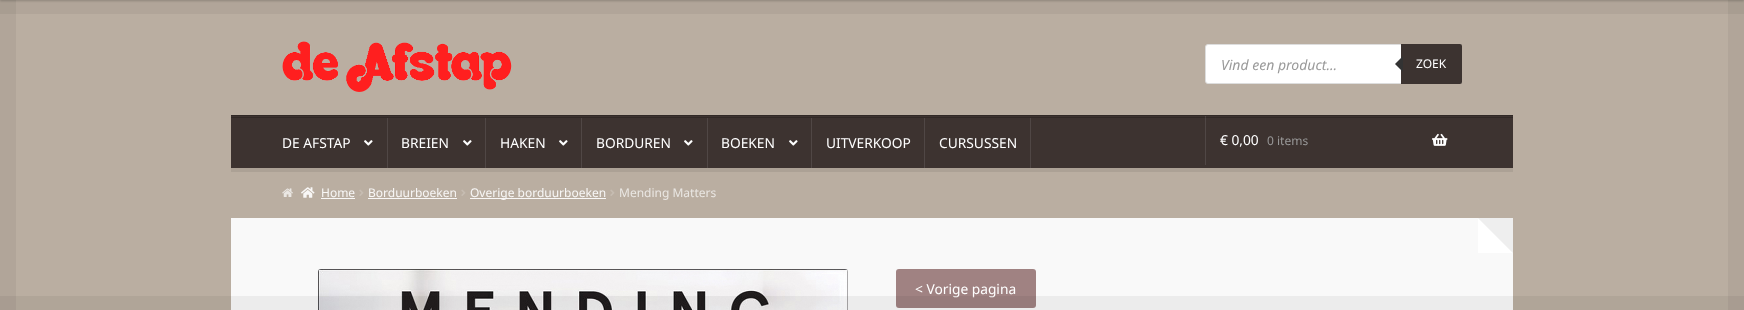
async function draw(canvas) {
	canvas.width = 1744;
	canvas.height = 310;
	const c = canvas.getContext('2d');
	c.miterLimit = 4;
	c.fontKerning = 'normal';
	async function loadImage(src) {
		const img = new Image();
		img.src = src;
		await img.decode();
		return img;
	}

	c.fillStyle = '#baaea1';
	c.fillRect(0, 0, 1744, 310);
	for (const [x, y, w, h, color] of [
		[0, 14, 16, 296, '#b1a599'],
		[0, 0, 16, 14, '#a89d91'],
		[16, 0, 1712, 14, '#b1a599'],
	]) {
		c.fillStyle = color;
		c.fillRect(x, y, w, h);
	}
	c.drawImage(await loadImage('img1.png'), 282, 41, 230, 51);
	c.fillStyle = '#fff';
	c.beginPath();
	c.roundRect(1205.5, 44.5, 256, 39, 2.5);
	c.fill();
	c.strokeStyle = '#ddd';
	c.stroke();
	c.font = 'italic 14px Noto Sans';
	c.fillStyle = '#999';
	c.fillText('Vind een product...', 1221, 70);
	c.fillStyle = '#3c3330';
	c.beginPath();
	c.roundRect(1401, 44, 61, 40, [0, 2, 2, 0]);
	c.fill();
	c.fillStyle = '#333';
	c.beginPath();
	c.moveTo(1403, 56);
	c.lineTo(1403, 72);
	c.lineTo(1395, 64);
	c.closePath();
	c.fill();
	c.font = '12px Noto Sans';
	c.fillStyle = '#fff';
	c.fillText('ZOEK', 1416, 68);
	for (const [x, y, w, h, color] of [
		[231, 168, 1282, 4, '#aca195'],
		[231, 116, 1282, 52, '#3d3330'],
		[1205, 116, 1, 49, '#504745'],
		[231, 115, 1282, 1, '#312926'],
		[231, 117, 1282, 1, '#312926'],
		[1205, 117, 1, 1, '#463e3c'],
		[387, 118, 1, 50, '#504745'],
	]) {
		c.fillStyle = color;
		c.fillRect(x, y, w, h);
	}
	c.font = '13.75px Noto Sans';
	c.fillStyle = '#fff';
	c.fillText('DE AFSTAP', 282, 148);
	c.drawImage(await loadImage('img2.png'), 364, 140, 9, 6);
	c.fillStyle = '#504745';
	c.fillRect(485, 118, 1, 50);
	c.fillStyle = '#fff';
	c.fillText('BREIEN', 401, 148);
	c.drawImage(await loadImage('img2.png'), 463, 140, 9, 6);
	c.fillStyle = '#504745';
	c.fillRect(581, 118, 1, 50);
	c.fillStyle = '#fff';
	c.fillText('HAKEN', 500, 148);
	c.drawImage(await loadImage('img2.png'), 559, 140, 9, 6);
	c.fillStyle = '#504745';
	c.fillRect(707, 118, 1, 50);
	c.fillStyle = '#fff';
	c.fillText('BORDUREN', 596, 148);
	c.drawImage(await loadImage('img2.png'), 684, 140, 9, 6);
	c.fillStyle = '#504745';
	c.fillRect(811, 118, 1, 50);
	c.fillStyle = '#fff';
	c.fillText('BOEKEN', 721, 148);
	c.drawImage(await loadImage('img2.png'), 789, 140, 9, 6);
	c.fillStyle = '#504745';
	c.fillRect(924, 118, 1, 50);
	c.fillStyle = '#fff';
	c.fillText('UITVERKOOP', 826, 148);
	c.fillStyle = '#504745';
	c.fillRect(1030, 118, 1, 50);
	c.fillStyle = '#fff';
	c.fillText('CURSUSSEN', 939, 148);
	c.fillText('€ 0,00', 1220, 145);
	c.font = '12px Noto Sans';
	c.fillStyle = '#999';
	c.fillText('0 items', 1267, 145);
	c.drawImage(await loadImage('img3.png'), 1432, 133, 16, 13);
	c.drawImage(await loadImage('img4.png'), 282, 188, 11, 9);
	c.drawImage(await loadImage('img5.png'), 301, 187, 14, 11);
	c.fillStyle = '#f8f7f6';
	c.fillText('Home', 321, 197);
	c.fillRect(321, 198, 34, 1);
	c.drawImage(await loadImage('img6.png'), 359, 189, 5, 7);
	c.fillText('Borduurboeken', 368, 197);
	c.fillRect(368, 198, 89, 1);
	c.drawImage(await loadImage('img6.png'), 461, 189, 5, 7);
	c.fillRect(470, 198, 136, 1);
	c.fillText('Overige borduurboeken', 470, 197);
	c.drawImage(await loadImage('img6.png'), 610, 189, 5, 7);
	c.fillStyle = '#eae7e3';
	c.fillText('Mending Matters', 619, 197);
	c.fillStyle = '#a89d91';
	c.fillRect(1728, 0, 16, 14);
	c.fillStyle = '#00000033';
	c.filter = 'blur(1px)';
	c.beginPath();
	c.rect(0, -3, 1744, 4);
	c.fill();
	c.filter = 'none';
	c.fillStyle = '#f9f9f9';
	c.fillRect(231, 218, 1282, 92);
	c.fillStyle = '#fff';
	c.beginPath();
	c.moveTo(1513, 253);
	c.lineTo(1478, 253);
	c.lineTo(1478, 218);
	c.closePath();
	c.fill();
	c.fillStyle = '#eee';
	c.beginPath();
	c.moveTo(1513, 218);
	c.lineTo(1513, 253);
	c.lineTo(1478, 218);
	c.closePath();
	c.fill();
	c.drawImage(await loadImage('img7.png'), 318, 269, 530, 41);
	c.fillStyle = '#a08282';
	c.beginPath();
	c.roundRect(896, 269, 140, 39, 3);
	c.fill();
	c.font = '13.75px Noto Sans';
	c.fillStyle = '#fff';
	c.fillText('< Vorige pagina', 915, 294);
	c.fillStyle = '#b1a599';
	c.fillRect(1728, 14, 16, 296);
	c.fillStyle = '#0000000d';
	c.fillRect(0, 296, 1744, 14);
}

draw(document.querySelector('canvas'));
